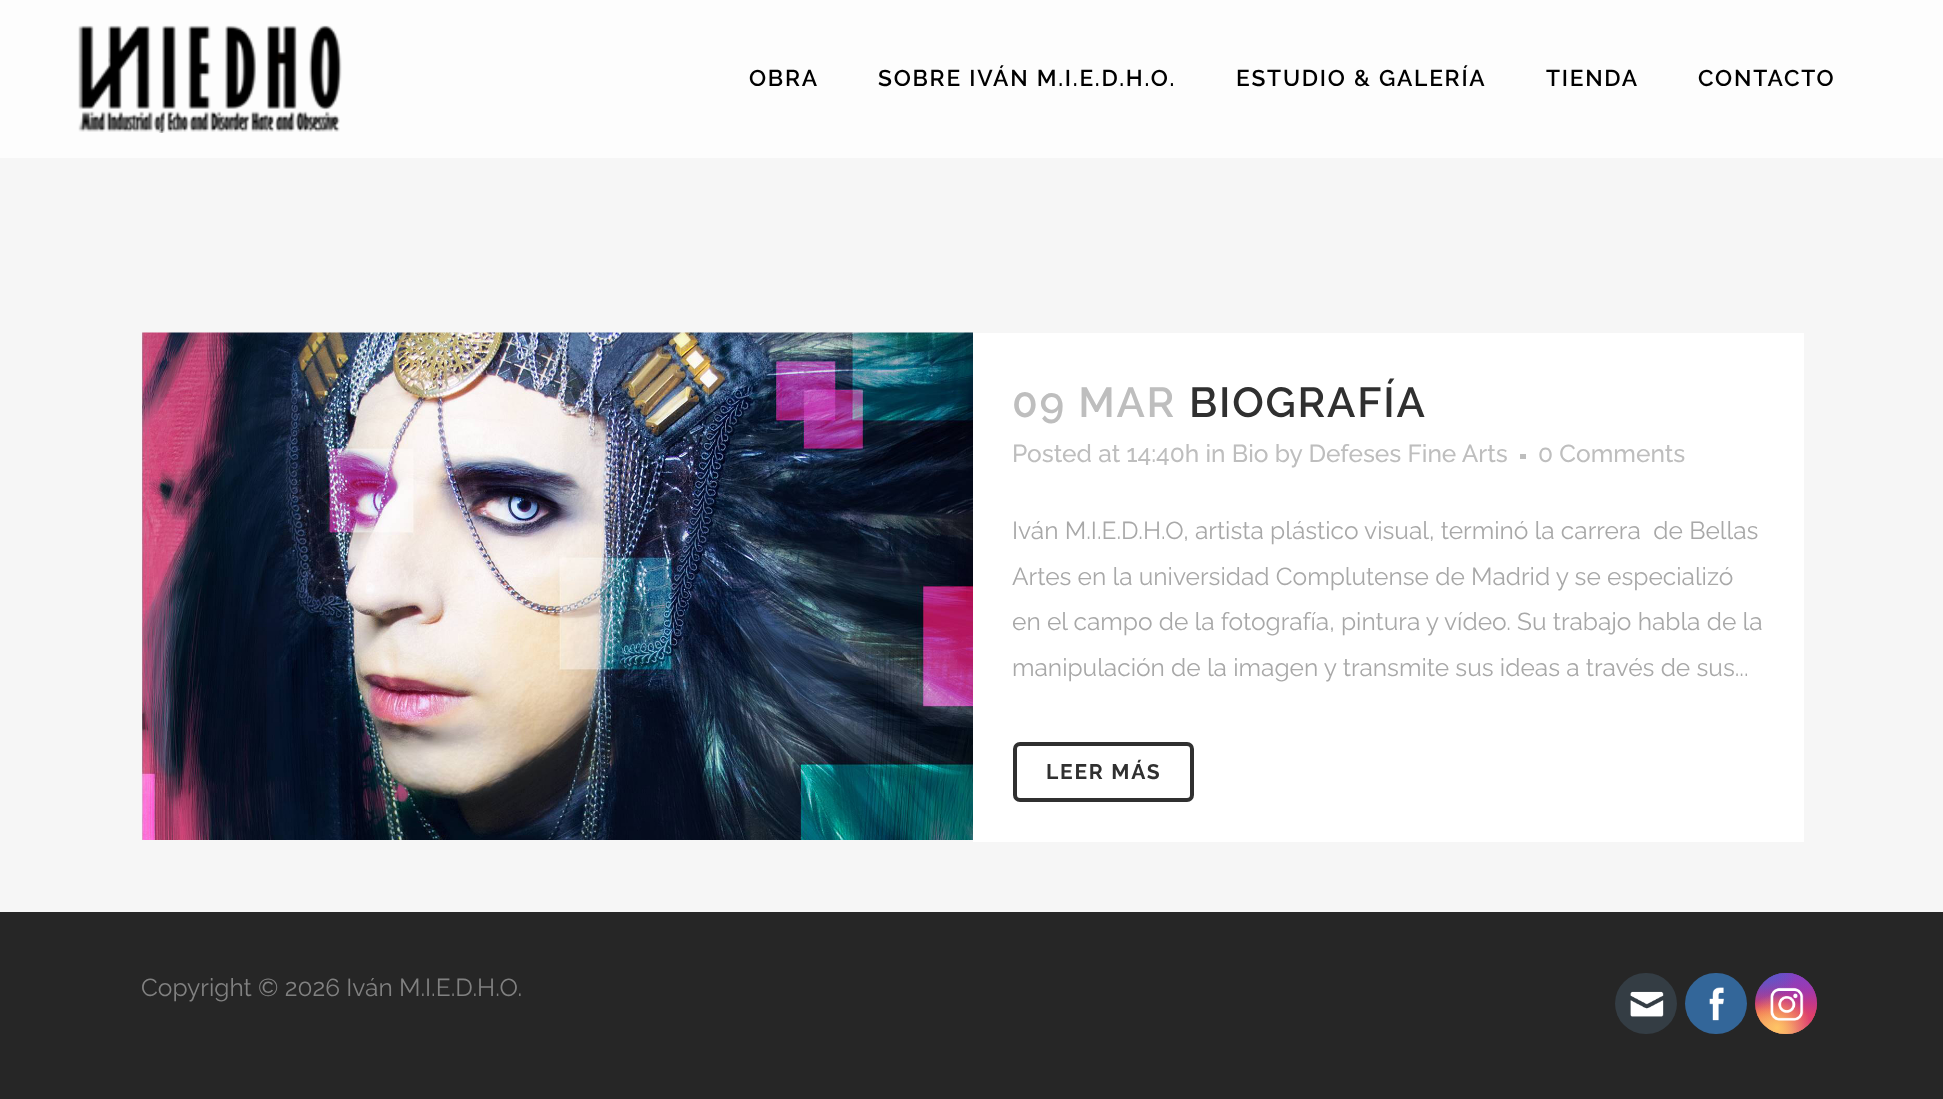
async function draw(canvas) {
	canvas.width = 1943;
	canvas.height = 1099;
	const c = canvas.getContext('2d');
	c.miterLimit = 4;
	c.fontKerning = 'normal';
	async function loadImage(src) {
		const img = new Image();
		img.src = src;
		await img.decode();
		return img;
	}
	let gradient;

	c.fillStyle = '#f6f6f6';
	c.fillRect(0, 0, 1943, 1099);
	c.fillStyle = '#fdfdfd';
	c.fillRect(0, 0, 1943, 158);
	c.drawImage(await loadImage('img1.png'), 78, 25, 264, 108);
	c.letterSpacing = '1.75px';
	c.font = '600 22.75px Raleway';
	c.fillStyle = '#000';
	for (const [text, x, y] of [
		['OBRA', 749, 86],
		['SOBRE IVÁN M.I.E.D.H.O.', 878, 86],
		['ESTUDIO & GALERÍA', 1236, 86],
		['TIENDA', 1546, 86],
		['CONTACTO', 1698, 86],
	]) {
		c.fillText(text, x, y);
	}
	c.drawImage(await loadImage('img2.png'), 141, 332, 832, 508);
	c.fillStyle = '#fff';
	c.fillRect(973, 333, 831, 509);
	c.font = '600 42px Raleway';
	c.fillStyle = '#bebebe';
	c.fillText('09 MAR', 1012, 417);
	c.fillStyle = '#303030';
	c.fillText('BIOGRAFÍA', 1189, 417);
	c.letterSpacing = '0px';
	c.font = '500 24.5px Raleway';
	c.fillStyle = '#bebebe';
	c.fillText('Posted at 14:40h in Bio by Defeses Fine Arts', 1012, 462);
	c.fillRect(1520, 454, 6, 5);
	c.fillText('0 Comments', 1538, 462);
	c.font = '24.5px Raleway';
	c.fillStyle = '#a8a8a8';
	for (const [text, x, y] of [
		['Iván M.I.E.D.H.O, artista plástico visual, terminó la carrera  de Bellas', 1012, 539],
		['Artes en la universidad Complutense de Madrid y se especializó', 1012, 585],
		['en el campo de la fotografía, pintura y vídeo. Su trabajo habla de la', 1012, 630],
		['manipulación de la imagen y transmite sus ideas a través de sus...', 1012, 676],
	]) {
		c.fillText(text, x, y);
	}
	c.beginPath();
	c.roundRect(1015, 744, 177, 56, 5);
	c.strokeStyle = '#303030';
	c.lineWidth = 4;
	c.stroke();
	c.letterSpacing = '1.75px';
	c.font = 'bold 21px Raleway';
	c.fillStyle = '#303030';
	c.fillText('LEER MÁS', 1046, 779);
	c.fillStyle = '#262626';
	c.fillRect(0, 912, 1943, 187);
	c.letterSpacing = '0px';
	c.font = '24.5px Raleway';
	c.fillStyle = '#818181';
	c.fillText('Copyright © 2026 Iván M.I.E.D.H.O.', 141, 996);
	c.fillStyle = '#343d44';
	c.beginPath();
	c.roundRect(1615, 973, 62, 61, 30.5);
	c.fill();
	c.drawImage(await loadImage('img3.png'), 1630, 991, 34, 26);
	c.fillStyle = '#369';
	c.beginPath();
	c.roundRect(1685, 973, 62, 61, 30.5);
	c.fill();
	c.drawImage(await loadImage('img4.png'), 1709, 987, 15, 34);
	gradient = c.createLinearGradient(1786, 973, 1786, 1034);
	gradient.addColorStop(0, '#6559ca');
	gradient.addColorStop(0.3, '#bc318f');
	gradient.addColorStop(0.5, '#e33f5f');
	gradient.addColorStop(0.7, '#f77638');
	gradient.addColorStop(1, '#fec66d');
	c.fillStyle = gradient;
	c.beginPath();
	c.roundRect(1755, 973, 62, 61, 30.5);
	c.fill();
	gradient = c.createRadialGradient(1817, 1034, 0, 1817, 1034, 87);
	gradient.addColorStop(0, '#d9317a');
	gradient.addColorStop(1, '#d9317a00');
	c.fillStyle = gradient;
	c.beginPath();
	c.roundRect(1755, 973, 62, 61, 30.5);
	c.fill();
	gradient = c.createRadialGradient(1792, 480.5, 0, 1792, 480.5, 52);
	gradient.addColorStop(0, '#893dc2');
	gradient.addColorStop(0.5, '#893dc200');
	c.fillStyle = gradient;
	c.beginPath();
	c.roundRect(1755, 973, 62, 61, 30.5);
	c.save();
	c.clip();
	c.scale(1, 104 / 52);
	c.fillRect(0, 0, 1943, 550);
	c.restore();
	gradient = c.createRadialGradient(1817, 973, 0, 1817, 973, 87);
	gradient.addColorStop(0, '#893dc2');
	gradient.addColorStop(0.5, '#893dc200');
	c.fillStyle = gradient;
	c.beginPath();
	c.roundRect(1755, 973, 62, 61, 30.5);
	c.fill();
	gradient = c.createRadialGradient(1768, 499.98, 0, 1768, 499.98, 69);
	gradient.addColorStop(0, '#5258cf');
	gradient.addColorStop(0.5, '#5258cf00');
	c.fillStyle = gradient;
	c.beginPath();
	c.roundRect(1755, 973, 62, 61, 30.5);
	c.save();
	c.clip();
	c.scale(1, 130 / 69);
	c.fillRect(0, 0, 1943, 584);
	c.restore();
	gradient = c.createRadialGradient(1755, 771.72, 0, 1755, 771.72, 87);
	gradient.addColorStop(0, '#5258cf');
	gradient.addColorStop(0.5, '#5258cf00');
	c.fillStyle = gradient;
	c.beginPath();
	c.roundRect(1755, 973, 62, 61, 30.5);
	c.save();
	c.clip();
	c.scale(1, 108 / 87);
	c.fillRect(0, 0, 1943, 886);
	c.restore();
	gradient = c.createRadialGradient(1755, 1059, 0, 1755, 1059, 105);
	gradient.addColorStop(0, '#fec564');
	gradient.addColorStop(0.5, '#fec56400');
	c.fillStyle = gradient;
	c.beginPath();
	c.roundRect(1755, 973, 62, 61, 30.5);
	c.fill();
	gradient = c.createRadialGradient(1777, 1028, 0, 1777, 1028, 68);
	gradient.addColorStop(0, '#fec564');
	gradient.addColorStop(0.5, '#fec56400');
	c.fillStyle = gradient;
	c.beginPath();
	c.roundRect(1755, 973, 62, 61, 30.5);
	c.fill();
	c.drawImage(await loadImage('img5.png'), 1770, 987, 34, 34);
}

draw(document.querySelector('canvas'));
